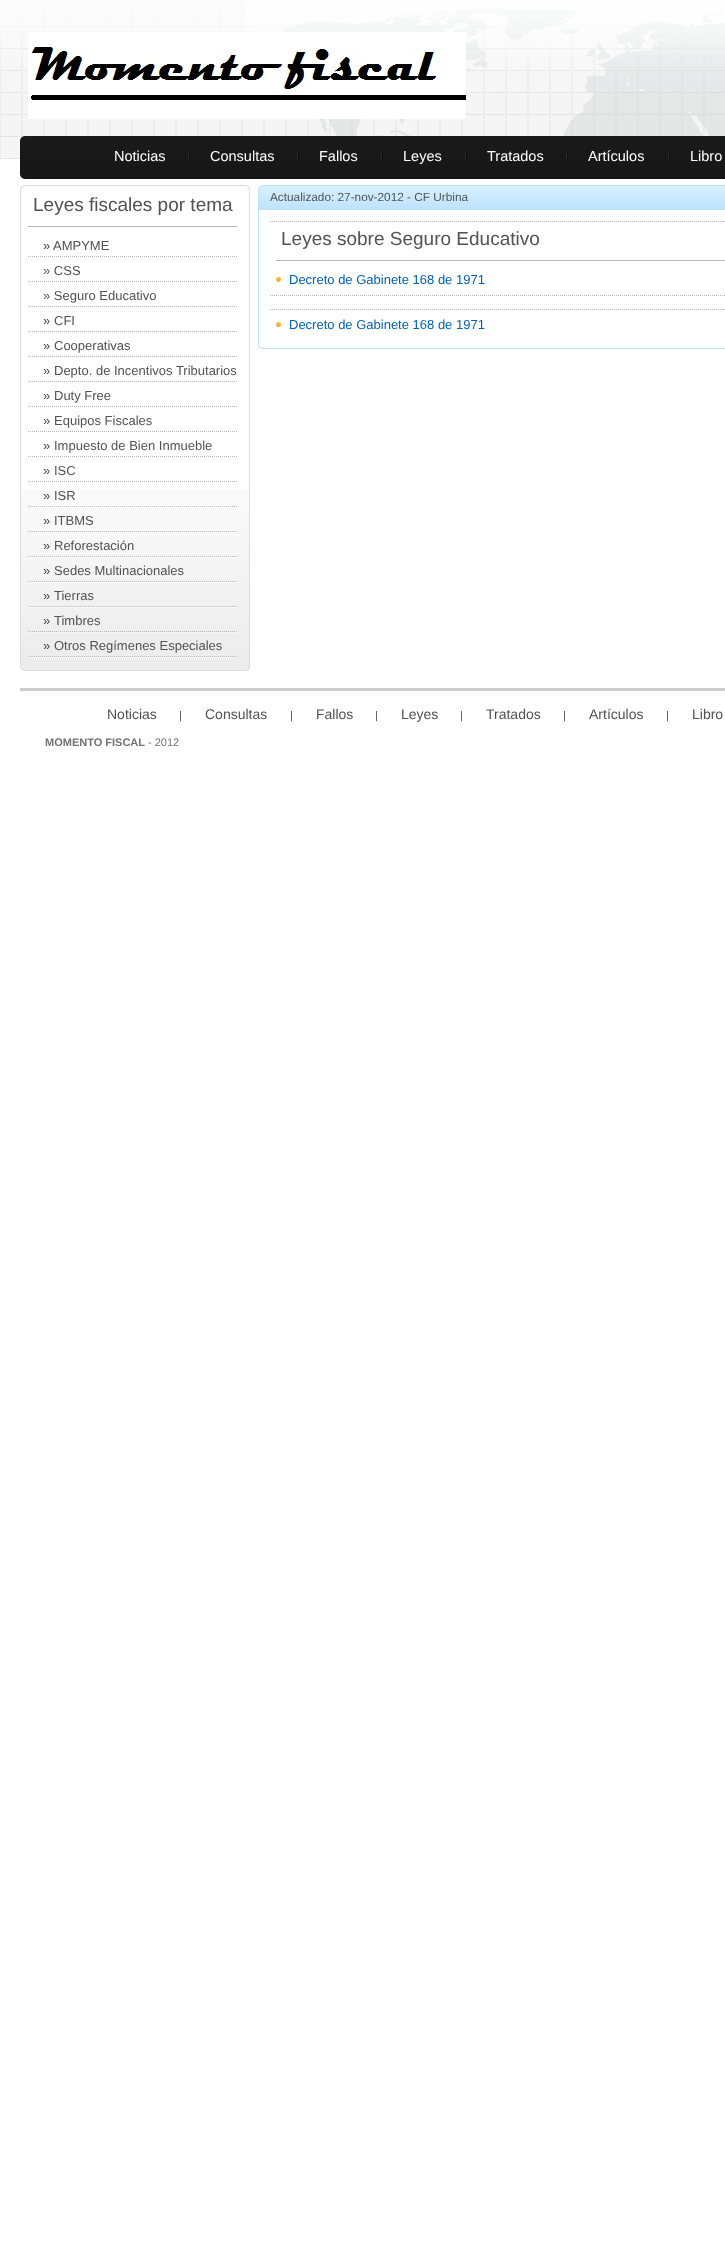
async function draw(canvas) {
	canvas.width = 725;
	canvas.height = 2266;
	const c = canvas.getContext('2d');
	c.miterLimit = 4;
	c.fontKerning = 'normal';
	async function loadImage(src) {
		const img = new Image();
		img.src = src;
		await img.decode();
		return img;
	}

	c.fillStyle = '#fff';
	c.fillRect(0, 0, 725, 2266);
	c.drawImage(await loadImage('img1.png'), 0, 0, 725, 159);
	c.drawImage(await loadImage('img2.png'), 245, 0, 480, 136);
	c.drawImage(await loadImage('img3.png'), 28, 32, 438, 87);
	c.drawImage(await loadImage('img4.png'), 25, 136, 700, 43);
	c.drawImage(await loadImage('img5.png'), 20, 136, 5, 43);
	c.font = '14.5px Liberation Sans';
	c.fillText('Noticias', 114, 161);
	c.drawImage(await loadImage('img6.png'), 188, 151, 2, 11);
	c.fillText('Consultas', 210, 161);
	c.drawImage(await loadImage('img6.png'), 297, 151, 2, 11);
	c.fillText('Fallos', 319, 161);
	c.drawImage(await loadImage('img6.png'), 381, 151, 2, 11);
	c.fillText('Leyes', 403, 161);
	c.drawImage(await loadImage('img6.png'), 465, 151, 2, 11);
	c.fillText('Tratados', 487, 161);
	c.drawImage(await loadImage('img6.png'), 566, 151, 2, 11);
	c.fillText('Artículos', 588, 161);
	c.drawImage(await loadImage('img6.png'), 668, 151, 2, 11);
	c.fillText('Libro', 690, 161);
	c.drawImage(await loadImage('img7.png'), 21, 489, 228, 182);
	for (const [x, y, w, h, color] of [
		[20, 185, 230, 1, '#dcdcdc'],
		[249, 186, 1, 484, '#dcdcdc'],
		[20, 186, 1, 484, '#dcdcdc'],
	]) {
		c.fillStyle = color;
		c.fillRect(x, y, w, h);
	}
	c.drawImage(await loadImage('img8.png'), 20, 185, 4, 4);
	c.drawImage(await loadImage('img9.png'), 246, 185, 4, 4);
	c.drawImage(await loadImage('img10.png'), 245, 668, 5, 3);
	c.drawImage(await loadImage('img11.png'), 20, 667, 4, 4);
	c.fillStyle = '#b7b7b7';
	c.fillRect(28, 226, 209, 1);
	c.font = '19px Liberation Sans';
	c.fillStyle = '#535252';
	c.fillText('Leyes fiscales por tema', 33, 211);
	c.drawImage(await loadImage('img12.png'), 28, 256, 209, 1);
	c.font = '13px Liberation Sans';
	c.fillStyle = '#404040';
	c.fillText('»', 43, 250);
	c.fillStyle = '#535252';
	c.fillText('AMPYME', 53, 250);
	c.drawImage(await loadImage('img12.png'), 28, 281, 209, 1);
	c.fillText('» CSS', 43, 275);
	c.drawImage(await loadImage('img12.png'), 28, 306, 209, 1);
	c.fillText('» Seguro Educativo', 43, 300);
	c.drawImage(await loadImage('img12.png'), 28, 331, 209, 1);
	c.fillStyle = '#404040';
	c.fillText('»', 43, 325);
	c.fillStyle = '#535252';
	c.fillText('CFI', 54, 325);
	c.drawImage(await loadImage('img12.png'), 28, 356, 209, 1);
	c.fillStyle = '#404040';
	c.fillText('»', 43, 350);
	c.fillStyle = '#535252';
	c.fillText('Cooperativas', 54, 350);
	c.drawImage(await loadImage('img12.png'), 28, 381, 209, 1);
	c.fillStyle = '#404040';
	c.fillText('»', 43, 375);
	c.fillStyle = '#535252';
	c.fillText('Depto. de Incentivos Tributarios', 54, 375);
	c.drawImage(await loadImage('img12.png'), 28, 406, 209, 1);
	c.fillStyle = '#404040';
	c.fillText('»', 43, 400);
	c.fillStyle = '#535252';
	c.fillText('Duty Free', 54, 400);
	c.drawImage(await loadImage('img12.png'), 28, 431, 209, 1);
	c.fillStyle = '#404040';
	c.fillText('»', 43, 425);
	c.fillStyle = '#535252';
	c.fillText('Equipos Fiscales', 54, 425);
	c.drawImage(await loadImage('img12.png'), 28, 456, 209, 1);
	c.fillStyle = '#404040';
	c.fillText('»', 43, 450);
	c.fillStyle = '#535252';
	c.fillText('Impuesto de Bien Inmueble', 54, 450);
	c.drawImage(await loadImage('img12.png'), 28, 481, 209, 1);
	c.fillStyle = '#404040';
	c.fillText('»', 43, 475);
	c.fillStyle = '#535252';
	c.fillText('ISC', 54, 475);
	c.drawImage(await loadImage('img13.png'), 28, 506, 209, 2);
	c.fillStyle = '#404040';
	c.fillText('»', 43, 500);
	c.fillStyle = '#535252';
	c.fillText('ISR', 54, 500);
	c.drawImage(await loadImage('img14.png'), 28, 531, 209, 2);
	c.fillStyle = '#404040';
	c.fillText('»', 43, 525);
	c.fillStyle = '#535252';
	c.fillText('ITBMS', 54, 525);
	c.drawImage(await loadImage('img15.png'), 28, 556, 209, 2);
	c.fillStyle = '#404040';
	c.fillText('»', 43, 550);
	c.fillStyle = '#535252';
	c.fillText('Reforestación', 54, 550);
	c.drawImage(await loadImage('img16.png'), 28, 581, 209, 2);
	c.fillStyle = '#404040';
	c.fillText('»', 43, 575);
	c.fillStyle = '#535252';
	c.fillText('Sedes Multinacionales', 54, 575);
	c.drawImage(await loadImage('img17.png'), 28, 606, 209, 2);
	c.fillStyle = '#404040';
	c.fillText('»', 43, 600);
	c.fillStyle = '#535252';
	c.fillText('Tierras', 54, 600);
	c.drawImage(await loadImage('img18.png'), 28, 631, 209, 2);
	c.fillStyle = '#404040';
	c.fillText('»', 43, 625);
	c.fillStyle = '#535252';
	c.fillText('Timbres', 54, 625);
	c.drawImage(await loadImage('img19.png'), 28, 656, 209, 2);
	c.fillStyle = '#404040';
	c.fillText('»', 43, 650);
	c.fillStyle = '#535252';
	c.fillText('Otros Regímenes Especiales', 54, 650);
	c.drawImage(await loadImage('img20.png'), 259, 185, 466, 25);
	c.fillStyle = '#bee3fe';
	c.fillRect(258, 348, 467, 1);
	c.fillRect(258, 186, 1, 162);
	c.drawImage(await loadImage('img21.png'), 258, 185, 5, 4);
	c.drawImage(await loadImage('img22.png'), 258, 345, 5, 4);
	c.font = '11.8px Liberation Sans';
	c.fillStyle = '#535252';
	c.fillText('Actualizado: 27-nov-2012 - CF Urbina', 270, 201);
	c.drawImage(await loadImage('img23.png'), 270, 221, 455, 1);
	c.fillStyle = '#b7b7b7';
	c.fillRect(276, 260, 449, 1);
	c.font = '19px Liberation Sans';
	c.fillStyle = '#535252';
	c.fillText('Leyes sobre Seguro Educativo', 281, 245);
	c.drawImage(await loadImage('img24.png'), 276, 277, 5, 5);
	c.font = '13px Liberation Sans';
	c.fillStyle = '#0461ac';
	c.fillText('Decreto de Gabinete 168 de 1971', 289, 284);
	c.drawImage(await loadImage('img23.png'), 270, 295, 455, 1);
	c.drawImage(await loadImage('img23.png'), 270, 309, 455, 1);
	c.drawImage(await loadImage('img24.png'), 276, 322, 5, 5);
	c.fillText('Decreto de Gabinete 168 de 1971', 289, 329);
	c.fillStyle = '#ccc';
	c.fillRect(20, 688, 705, 3);
	c.font = '14px Liberation Sans';
	c.fillStyle = '#535252';
	c.fillText('Noticias', 107, 719);
	c.font = '11px Liberation Sans';
	c.fillText('|', 179, 719);
	c.font = '14px Liberation Sans';
	c.fillText('Consultas', 205, 719);
	c.font = '11px Liberation Sans';
	c.fillText('|', 290, 719);
	c.font = '14px Liberation Sans';
	c.fillText('Fallos', 316, 719);
	c.font = '11px Liberation Sans';
	c.fillText('|', 375, 719);
	c.font = '14px Liberation Sans';
	c.fillText('Leyes', 401, 719);
	c.font = '11px Liberation Sans';
	c.fillText('|', 460, 719);
	c.font = '14px Liberation Sans';
	c.fillText('Tratados', 486, 719);
	c.font = '11px Liberation Sans';
	c.fillText('|', 563, 719);
	c.font = '14px Liberation Sans';
	c.fillText('Artículos', 589, 719);
	c.font = '11px Liberation Sans';
	c.fillText('|', 666, 719);
	c.font = '14px Liberation Sans';
	c.fillText('Libro', 692, 719);
	c.font = 'bold 11px Liberation Sans';
	c.fillStyle = '#727272';
	c.fillText('MOMENTO FISCAL', 45, 746);
	c.font = '11px Liberation Sans';
	c.fillText('- 2012', 148, 746);
}

draw(document.querySelector('canvas'));
